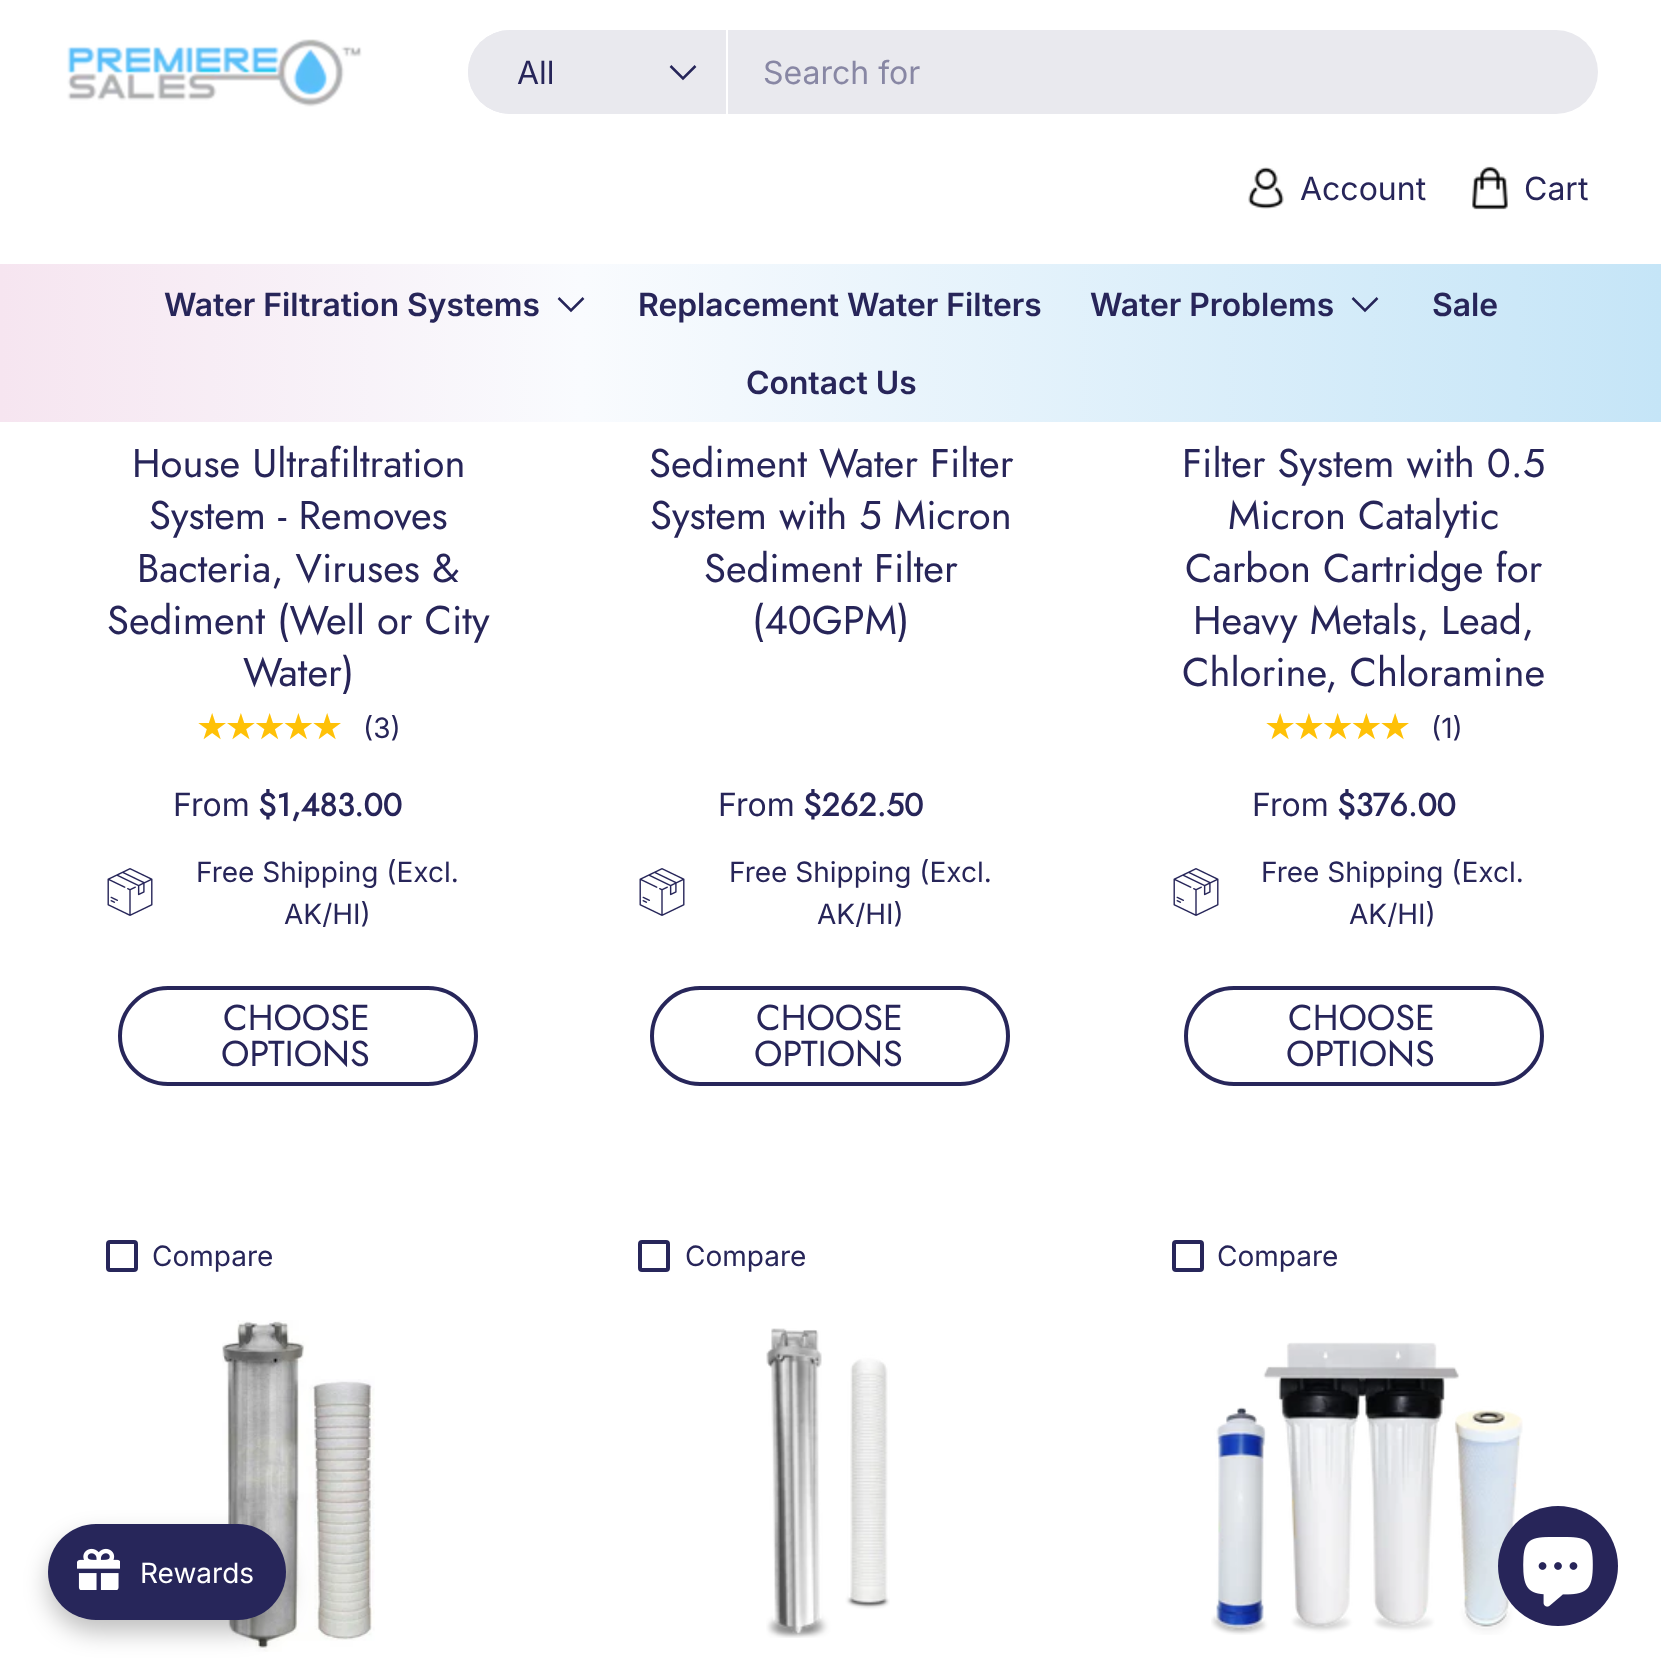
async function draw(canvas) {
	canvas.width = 1661;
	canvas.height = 1667;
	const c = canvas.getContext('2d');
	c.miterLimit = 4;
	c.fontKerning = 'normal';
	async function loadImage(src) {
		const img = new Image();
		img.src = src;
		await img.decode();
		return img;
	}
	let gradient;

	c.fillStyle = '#fff';
	c.fillRect(0, 0, 1661, 1667);
	c.drawImage(await loadImage('img1.png'), 67, 39, 295, 68);
	c.fillStyle = '#e9e9ee';
	c.beginPath();
	c.roundRect(468, 30, 1130, 84, 42);
	c.fill();
	c.beginPath();
	c.roundRect(468, 30, 260, 84, [42, 0, 0, 42]);
	c.fill();
	c.fillStyle = '#fff';
	c.fillRect(726, 30, 2, 84);
	c.font = '32px Inter';
	c.fillStyle = '#272559';
	c.fillText('All', 517, 84);
	c.beginPath();
	c.moveTo(695.5, 66);
	c.lineTo(683, 78.5);
	c.lineTo(670.5, 66);
	c.strokeStyle = '#262559';
	c.lineWidth = 2.5;
	c.stroke();
	c.fillStyle = '#8887a4';
	c.fillText('Search for', 763, 84);
	c.drawImage(await loadImage('img2.png'), 1248, 167, 36, 42);
	c.fillStyle = '#272559';
	c.fillText('Account', 1300, 200);
	c.drawImage(await loadImage('img3.png'), 1472, 166, 36, 44);
	c.fillText('Cart', 1524, 200);
	gradient = c.createLinearGradient(0, 343, 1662, 343);
	gradient.addColorStop(0, '#f6e5f0');
	gradient.addColorStop(0.35, '#f9fbfe');
	gradient.addColorStop(1, '#c5e5f7');
	c.fillStyle = gradient;
	c.fillRect(0, 264, 1661, 158);
	c.font = '600 32px Inter';
	c.fillStyle = '#272559';
	c.fillText('Water Filtration Systems', 164, 316);
	c.beginPath();
	c.moveTo(583.5, 298);
	c.lineTo(571, 310.5);
	c.lineTo(558.5, 298);
	c.stroke();
	c.fillText('Replacement Water Filters', 638, 316);
	c.fillText('Water Problems', 1090, 316);
	c.beginPath();
	c.moveTo(1377.5, 298);
	c.lineTo(1365, 310.5);
	c.lineTo(1352.5, 298);
	c.stroke();
	c.fillText('Sale', 1432, 316);
	c.fillText('Contact Us', 746, 394);
	c.font = '40px Jost';
	for (const [text, x, y] of [
		['House Ultrafiltration', 132, 477],
		['System - Removes', 149, 529],
		['Bacteria, Viruses &', 137, 582],
		['Sediment (Well or City', 107, 634],
		['Water)', 243, 686],
	]) {
		c.fillText(text, x, y);
	}
	c.letterSpacing = '-3.5px';
	c.font = '36px DejaVu Sans';
	gradient = c.createLinearGradient(196, 727, 341, 727);
	gradient.addColorStop(1, '#ffc107');
	gradient.addColorStop(1, '#fff3cd');
	c.fillStyle = gradient;
	c.fillText('★★★★★', 196, 739);
	c.letterSpacing = '0px';
	c.font = '28px Inter';
	c.fillStyle = '#272559';
	c.fillText('(3)', 363, 738);
	c.font = '32px Inter';
	c.fillText('From', 173, 816);
	c.font = 'bold 32px Jost';
	c.fillText('$1,483.00', 258, 816);
	c.drawImage(await loadImage('img4.png'), 107, 868, 46, 48);
	c.font = '28px Inter';
	c.fillText('Free Shipping (Excl.', 196, 882);
	c.fillText('AK/HI)', 284, 924);
	c.beginPath();
	c.roundRect(120, 988, 356, 96, 48);
	c.strokeStyle = '#27265a';
	c.lineWidth = 4;
	c.stroke();
	c.font = '36px Jost';
	c.fillText('CHOOSE', 223, 1030);
	c.fillText('OPTIONS', 221, 1066);
	c.font = '40px Jost';
	for (const [text, x, y] of [
		['Sediment Water Filter', 649, 477],
		['System with 5 Micron', 650, 529],
		['Sediment Filter', 704, 582],
		['(40GPM)', 752, 634],
	]) {
		c.fillText(text, x, y);
	}
	c.font = '32px Inter';
	c.fillText('From', 718, 816);
	c.font = 'bold 32px Jost';
	c.fillText('$262.50', 803, 816);
	c.drawImage(await loadImage('img4.png'), 639, 868, 46, 48);
	c.font = '28px Inter';
	c.fillText('Free Shipping (Excl.', 729, 882);
	c.fillText('AK/HI)', 817, 924);
	c.beginPath();
	c.roundRect(652, 988, 356, 96, 48);
	c.stroke();
	c.font = '36px Jost';
	c.fillText('CHOOSE', 756, 1030);
	c.fillText('OPTIONS', 754, 1066);
	c.font = '40px Jost';
	for (const [text, x, y] of [
		['Filter System with 0.5', 1182, 477],
		['Micron Catalytic', 1228, 529],
		['Carbon Cartridge for', 1185, 582],
		['Heavy Metals, Lead,', 1193, 634],
		['Chlorine, Chloramine', 1182, 686],
	]) {
		c.fillText(text, x, y);
	}
	c.letterSpacing = '-3.5px';
	c.font = '36px DejaVu Sans';
	gradient = c.createLinearGradient(1264, 727, 1409, 727);
	gradient.addColorStop(1, '#ffc107');
	gradient.addColorStop(1, '#fff3cd');
	c.fillStyle = gradient;
	c.fillText('★★★★★', 1264, 739);
	c.letterSpacing = '0px';
	c.font = '28px Inter';
	c.fillStyle = '#272559';
	c.fillText('(1)', 1431, 738);
	c.font = '32px Inter';
	c.fillText('From', 1252, 816);
	c.font = 'bold 32px Jost';
	c.fillText('$376.00', 1337, 816);
	c.drawImage(await loadImage('img4.png'), 1173, 868, 46, 48);
	c.font = '28px Inter';
	c.fillText('Free Shipping (Excl.', 1261, 882);
	c.fillText('AK/HI)', 1349, 924);
	c.beginPath();
	c.roundRect(1186, 988, 356, 96, 48);
	c.stroke();
	c.font = '36px Jost';
	c.fillText('CHOOSE', 1288, 1030);
	c.fillText('OPTIONS', 1286, 1066);
	c.beginPath();
	c.roundRect(108, 1242, 28, 28, 2);
	c.stroke();
	c.font = '28px Inter';
	c.fillText('Compare', 152, 1266);
	c.drawImage(await loadImage('img5.png'), 222, 1320, 153, 332);
	c.beginPath();
	c.roundRect(640, 1242, 28, 28, 2);
	c.stroke();
	c.fillText('Compare', 685, 1266);
	c.drawImage(await loadImage('img6.png'), 766, 1328, 124, 310);
	c.beginPath();
	c.roundRect(1174, 1242, 28, 28, 2);
	c.stroke();
	c.fillText('Compare', 1217, 1266);
	c.drawImage(await loadImage('img7.png'), 1211, 1342, 312, 293);
	c.fillStyle = '#00000040';
	c.filter = 'blur(12px)';
	c.beginPath();
	c.roundRect(48, 1536, 238, 96, 48);
	c.fill();
	c.filter = 'none';
	c.fillStyle = '#27265a';
	c.beginPath();
	c.roundRect(48, 1524, 238, 96, 48);
	c.fill();
	c.drawImage(await loadImage('img8.png'), 77, 1548, 43, 42);
	c.fillStyle = '#fff';
	c.fillText('Rewards', 140, 1583);
	c.fillStyle = '#272559';
	c.beginPath();
	c.arc(1558, 1566, 60, 0, 2 * Math.PI);
	c.fill();
	c.drawImage(await loadImage('img9.png'), 1523, 1537, 70, 70);
}

draw(document.querySelector('canvas'));
